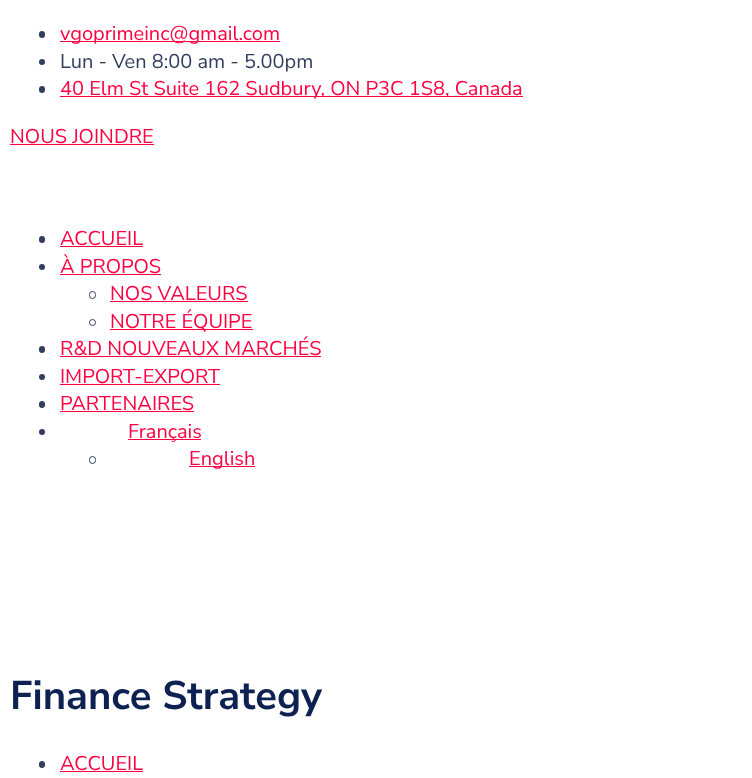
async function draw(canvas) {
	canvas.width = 752;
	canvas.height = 778;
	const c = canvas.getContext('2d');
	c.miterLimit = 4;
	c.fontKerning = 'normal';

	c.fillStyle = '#fff';
	c.fillRect(0, 0, 752, 778);
	c.fillStyle = '#313e5d';
	c.beginPath();
	c.roundRect(39, 31, 6, 7, 3);
	c.fill();
	c.fillStyle = '#ff0040';
	c.fillRect(60, 41, 220, 1);
	c.font = '20px Nunito Sans';
	c.fillText('vgoprimeinc@gmail.com', 60, 40);
	c.fillStyle = '#313e5d';
	c.beginPath();
	c.arc(42, 62, 3, 0, 2 * Math.PI);
	c.fill();
	c.fillText('Lun - Ven 8:00 am - 5.00pm', 60, 68);
	c.beginPath();
	c.roundRect(39, 86, 6, 7, 3);
	c.fill();
	c.fillStyle = '#ff0040';
	c.fillRect(60, 96, 463, 1);
	c.fillText('40 Elm St Suite 162 Sudbury, ON P3C 1S8, Canada', 60, 95);
	c.fillText('NOUS JOINDRE', 10, 143);
	c.fillRect(10, 144, 144, 1);
	c.fillStyle = '#313e5d';
	c.beginPath();
	c.roundRect(39, 236, 6, 7, 3);
	c.fill();
	c.fillStyle = '#ff0040';
	c.fillText('ACCUEIL', 60, 245);
	c.fillRect(60, 246, 83, 1);
	c.fillStyle = '#313e5d';
	c.beginPath();
	c.arc(42, 267, 3, 0, 2 * Math.PI);
	c.fill();
	c.fillStyle = '#ff0040';
	c.fillText('À PROPOS', 60, 273);
	c.fillRect(60, 274, 101, 1);
	c.beginPath();
	c.roundRect(89.5, 291.5, 6, 7, 3);
	c.strokeStyle = '#313e5d';
	c.stroke();
	c.fillText('NOS VALEURS', 110, 300);
	c.fillRect(110, 301, 138, 1);
	c.beginPath();
	c.arc(92.5, 322.5, 3, 0, 2 * Math.PI);
	c.stroke();
	c.fillRect(110, 329, 143, 1);
	c.fillText('NOTRE ÉQUIPE', 110, 328);
	c.fillStyle = '#313e5d';
	c.beginPath();
	c.roundRect(39, 346, 6, 7, 3);
	c.fill();
	c.fillStyle = '#ff0040';
	c.fillText('R&D NOUVEAUX MARCHÉS', 60, 355);
	c.fillRect(60, 356, 261, 1);
	c.fillStyle = '#313e5d';
	c.beginPath();
	c.arc(42, 377, 3, 0, 2 * Math.PI);
	c.fill();
	c.fillStyle = '#ff0040';
	c.fillText('IMPORT-EXPORT', 60, 383);
	c.fillRect(60, 384, 160, 1);
	c.fillStyle = '#313e5d';
	c.beginPath();
	c.roundRect(39, 401, 6, 7, 3);
	c.fill();
	c.fillStyle = '#ff0040';
	c.fillText('PARTENAIRES', 60, 410);
	c.fillRect(60, 411, 134, 1);
	c.fillStyle = '#313e5d';
	c.beginPath();
	c.arc(42, 432, 3, 0, 2 * Math.PI);
	c.fill();
	c.fillStyle = '#ff0040';
	c.fillRect(128, 439, 73, 1);
	c.fillText('Français', 128, 438);
	c.beginPath();
	c.roundRect(89.5, 456.5, 6, 7, 3);
	c.stroke();
	c.fillRect(189, 466, 66, 1);
	c.fillText('English', 189, 465);
	c.font = 'bold 40px Nunito Sans';
	c.fillStyle = '#0d2252';
	c.fillText('Finance Strategy', 10, 709);
	c.fillStyle = '#313e5d';
	c.beginPath();
	c.roundRect(39, 761, 6, 7, 3);
	c.fill();
	c.font = '20px Nunito Sans';
	c.fillStyle = '#ff0040';
	c.fillText('ACCUEIL', 60, 770);
	c.fillRect(60, 771, 83, 1);
}

draw(document.querySelector('canvas'));
